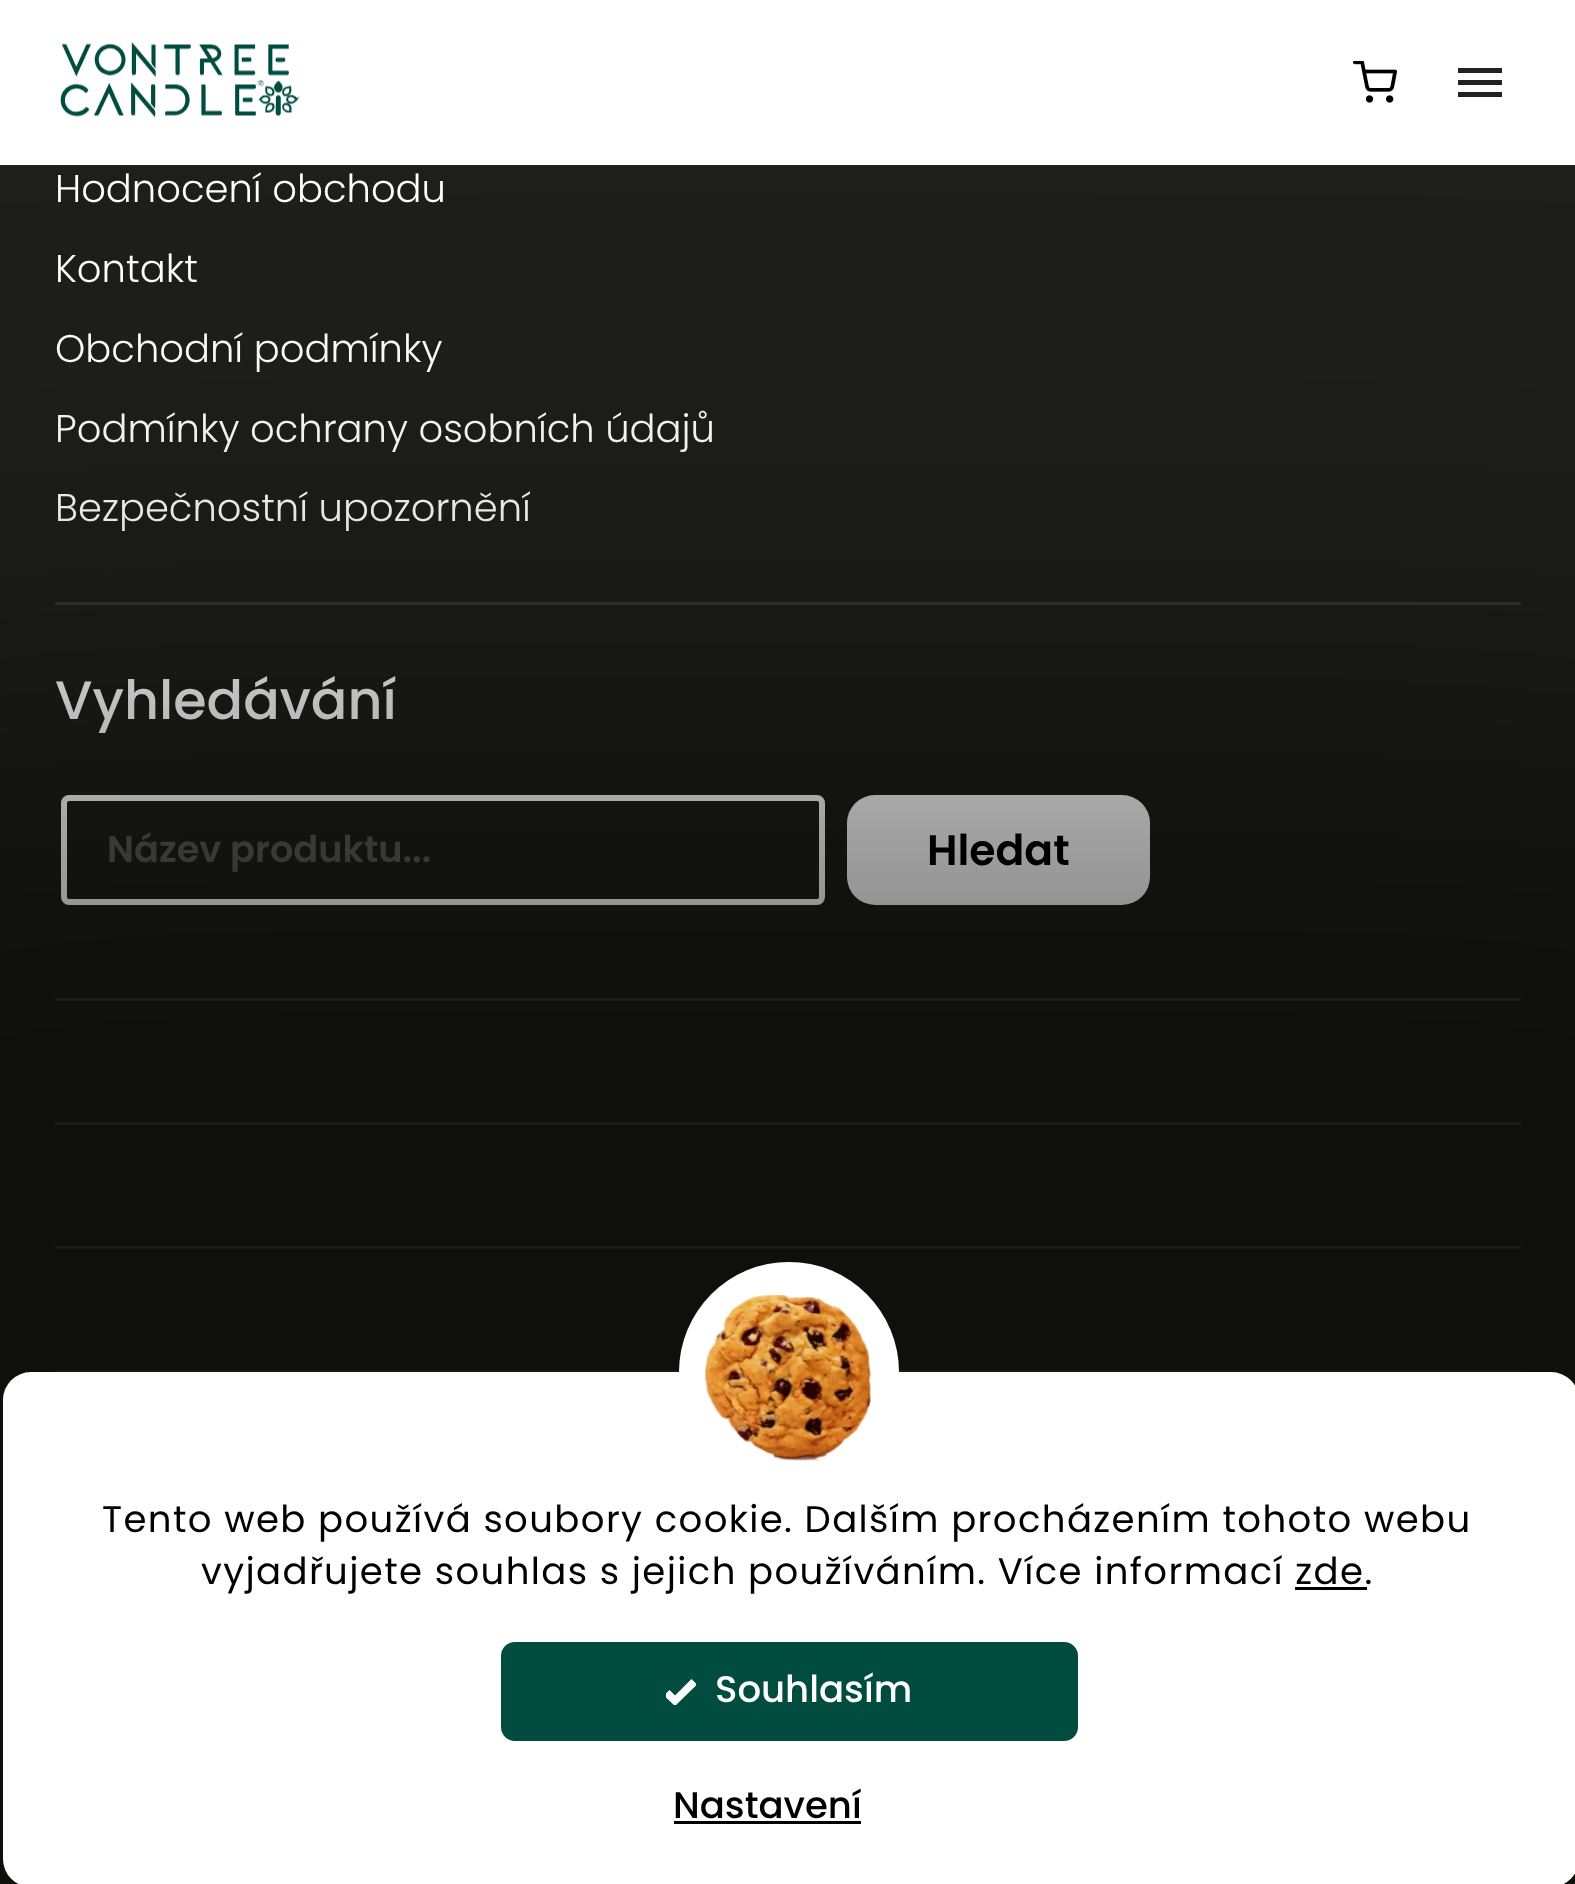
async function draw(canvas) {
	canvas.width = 1575;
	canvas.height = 1884;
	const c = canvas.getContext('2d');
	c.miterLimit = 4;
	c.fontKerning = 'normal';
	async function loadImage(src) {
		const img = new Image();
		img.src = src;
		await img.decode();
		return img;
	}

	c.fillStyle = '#1e1e1c';
	c.fillRect(0, 0, 1575, 1884);
	c.fillStyle = '#fff';
	c.fillRect(0, 0, 1575, 165);
	c.drawImage(await loadImage('img1.png'), 60, 42, 240, 76);
	c.drawImage(await loadImage('img2.png'), 1353, 61, 44, 42);
	c.fillStyle = '#222';
	c.beginPath();
	c.moveTo(1458, 97);
	c.lineTo(1502, 97);
	c.lineTo(1502, 92);
	c.lineTo(1458, 92);
	c.closePath();
	c.moveTo(1458, 85);
	c.lineTo(1502, 85);
	c.lineTo(1502, 80);
	c.lineTo(1458, 80);
	c.closePath();
	c.moveTo(1458, 68);
	c.lineTo(1458, 73);
	c.lineTo(1502, 73);
	c.lineTo(1502, 68);
	c.closePath();
	c.fill();
	c.fillStyle = '#353533';
	c.fillRect(55, 602, 1466, 3);
	c.font = '300 38.5px Poppins';
	c.fillStyle = '#fff';
	for (const [text, x, y] of [
		['Hodnocení obchodu', 55, 202],
		['Kontakt', 55, 282],
		['Obchodní podmínky', 55, 362],
		['Podmínky ochrany osobních údajů', 55, 442],
		['Bezpečnostní upozornění', 55, 521],
	]) {
		c.fillText(text, x, y);
	}
	c.fillStyle = '#353533';
	c.fillRect(55, 998, 1466, 3);
	c.font = '500 54px Poppins';
	c.fillStyle = '#fff';
	c.fillText('Vyhledávání', 55, 719);
	c.beginPath();
	c.roundRect(64, 798, 758, 104, 5);
	c.strokeStyle = '#fff';
	c.lineWidth = 6;
	c.stroke();
	c.font = '600 36.75px Poppins';
	c.fillStyle = '#5b5b5a';
	c.fillText('Název produktu...', 107, 862);
	c.fillStyle = '#fff';
	c.beginPath();
	c.roundRect(847, 795, 303, 110, 28);
	c.fill();
	c.font = '600 42.5px Poppins';
	c.fillStyle = '#000';
	c.fillText('Hledat', 927, 865);
	for (const [x, y, w, h, color] of [
		[55, 1122, 1466, 3, '#353533'],
		[55, 1246, 1466, 3, '#353533'],
		[55, 1370, 1466, 2, '#353533'],
	]) {
		c.fillStyle = color;
		c.fillRect(x, y, w, h);
	}
	c.save();
	c.beginPath();
	c.moveTo(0, 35);
	c.lineTo(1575, 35);
	c.lineTo(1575, 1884);
	c.lineTo(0, 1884);
	c.closePath();
	c.moveTo(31, 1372);
	c.lineTo(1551, 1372);
	c.bezierCurveTo(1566.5, 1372, 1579, 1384.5, 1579, 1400);
	c.lineTo(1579, 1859);
	c.bezierCurveTo(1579, 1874.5, 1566.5, 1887, 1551, 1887);
	c.lineTo(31, 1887);
	c.bezierCurveTo(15.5, 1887, 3, 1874.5, 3, 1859);
	c.lineTo(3, 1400);
	c.bezierCurveTo(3, 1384.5, 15.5, 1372, 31, 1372);
	c.closePath();
	c.clip('evenodd');
	c.fillStyle = '#00000080';
	c.filter = 'blur(220px)';
	c.beginPath();
	c.roundRect(-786, 696, 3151, 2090, 817);
	c.fill();
	c.filter = 'none';
	c.restore();
	c.fillStyle = '#fff';
	c.beginPath();
	c.roundRect(3, 1372, 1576, 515, 28);
	c.fill();
	c.beginPath();
	c.arc(789, 1372, 110, 0, 2 * Math.PI);
	c.fill();
	c.drawImage(await loadImage('img3.png'), 704, 1295, 167, 166);
	c.letterSpacing = '1.38px';
	c.font = '37.1px Poppins';
	c.fillStyle = '#000';
	c.fillText('Tento web používá soubory cookie. Dalším procházením tohoto webu', 102, 1532);
	c.fillText('vyjadřujete souhlas s jejich používáním. Více informací zde.', 201, 1584);
	c.fillRect(1295, 1587, 72, 3);
	c.fillStyle = '#004d40';
	c.beginPath();
	c.roundRect(502.5, 1643.5, 574, 96, 12.5);
	c.fill();
	c.strokeStyle = '#004d40';
	c.lineWidth = 3;
	c.stroke();
	c.save();
	c.beginPath();
	c.rect(666, 1678, 30, 27);
	c.clip();
	c.fillStyle = '#fff';
	c.beginPath();
	c.moveTo(691.5, 1679);
	c.lineTo(675, 1695.5);
	c.lineTo(669.5, 1690);
	c.lineTo(664, 1695.5);
	c.lineTo(675, 1706);
	c.lineTo(697, 1684.5);
	c.closePath();
	c.fill();
	c.restore();
	c.letterSpacing = '0px';
	c.font = '500 37.1px Poppins';
	c.fillStyle = '#fff';
	c.fillText('Souhlasím', 715, 1702);
	c.fillStyle = '#000';
	c.fillText('Nastavení', 673, 1818);
	c.fillRect(674, 1821, 187, 3);
}

draw(document.querySelector('canvas'));
